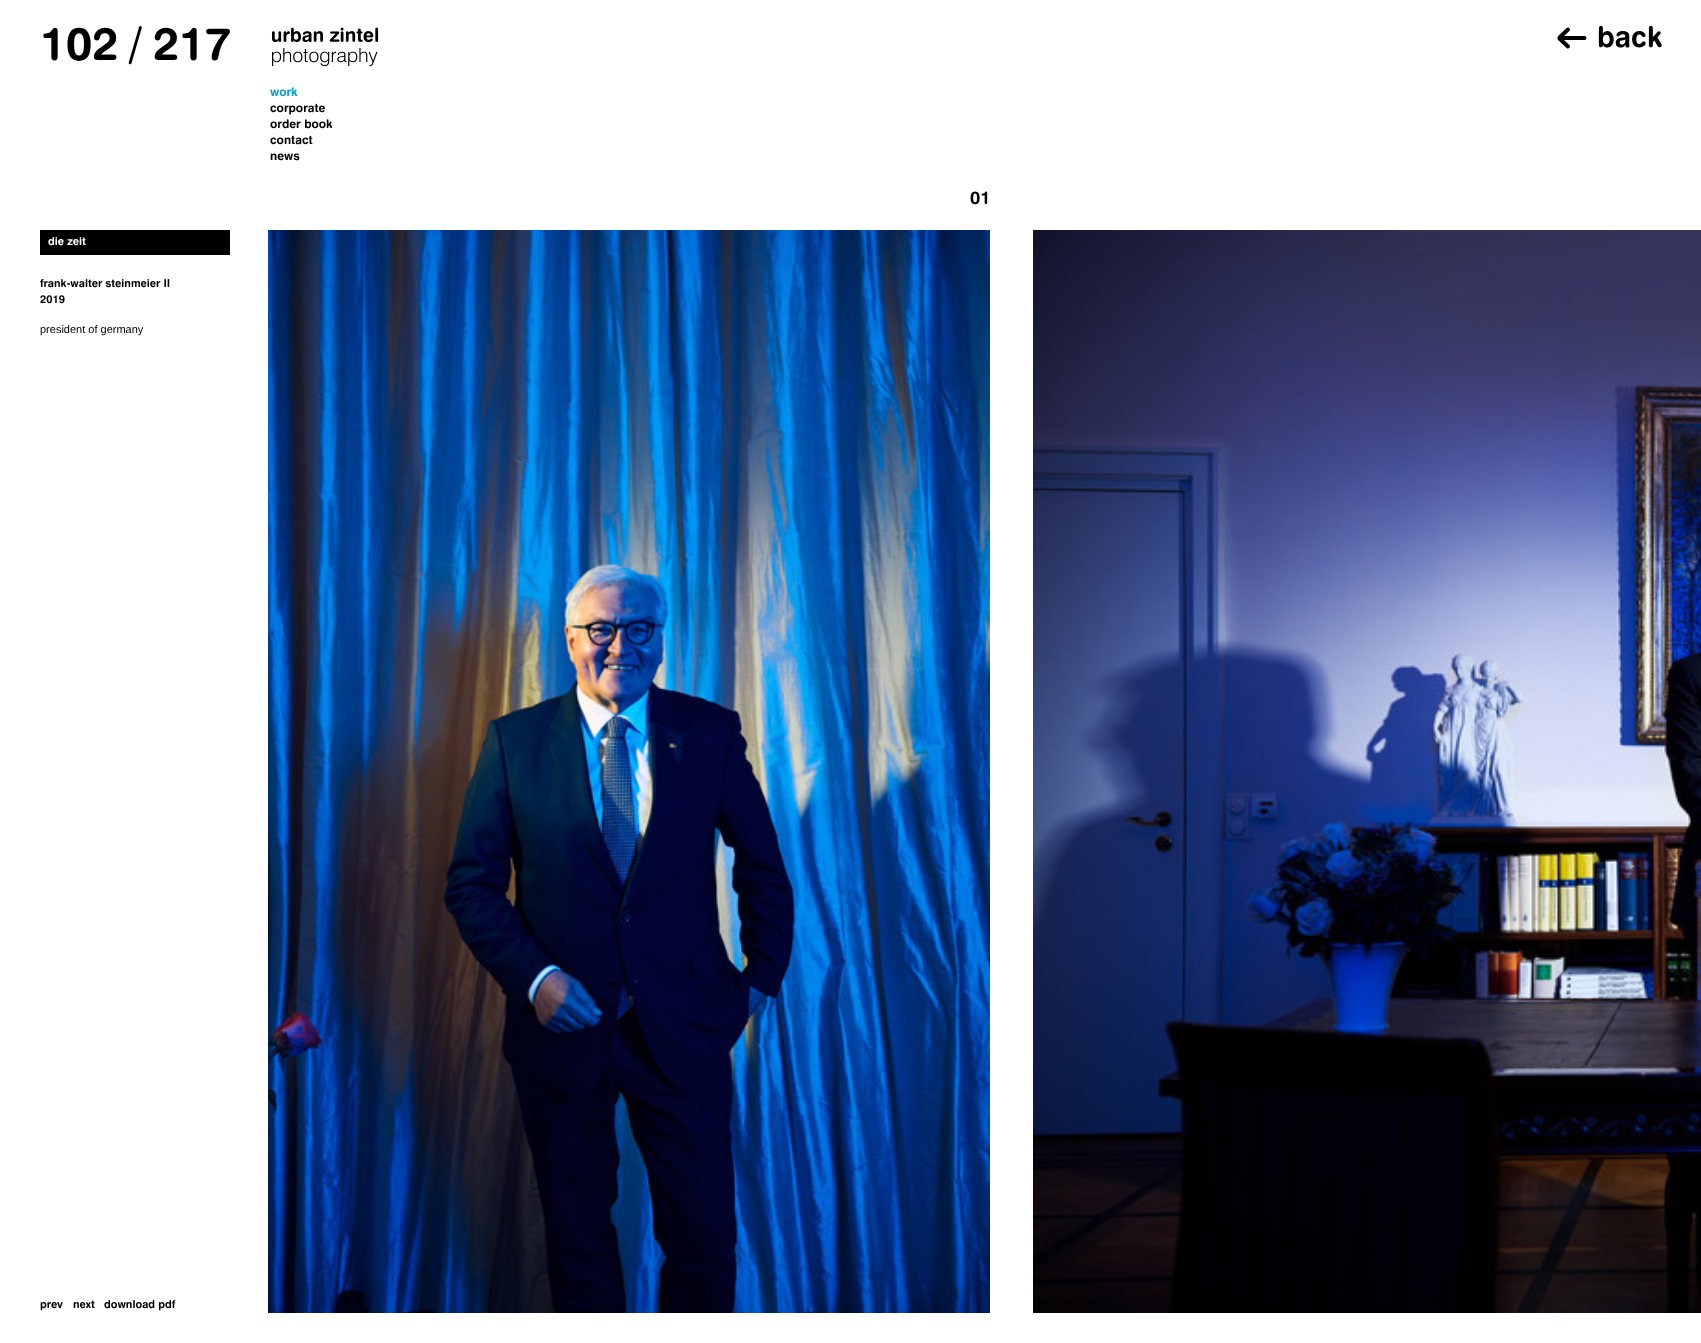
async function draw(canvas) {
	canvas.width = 1701;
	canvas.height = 1343;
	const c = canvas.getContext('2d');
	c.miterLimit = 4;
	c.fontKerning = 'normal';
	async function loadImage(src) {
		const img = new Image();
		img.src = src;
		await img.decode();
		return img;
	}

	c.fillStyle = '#fff';
	c.fillRect(0, 0, 1701, 1343);
	c.beginPath();
	c.moveTo(1559.5, 37.5);
	c.lineTo(1568, 29.5);
	c.moveTo(1568, 46.5);
	c.lineTo(1559.5, 38.5);
	c.strokeStyle = '#000';
	c.lineWidth = 4;
	c.lineCap = 'round';
	c.lineJoin = 'round';
	c.stroke();
	c.beginPath();
	c.moveTo(1584.5, 38);
	c.lineTo(1560.5, 38);
	c.lineJoin = 'miter';
	c.stroke();
	c.font = '29px "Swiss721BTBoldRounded"';
	c.fillStyle = '#000';
	c.fillText('back', 1597, 47);
	c.font = '18px "Swiss721BTBoldRounded"';
	c.fillText('01', 970, 204);
	c.drawImage(await loadImage('img1.png'), 268, 230, 722, 1083);
	c.drawImage(await loadImage('img2.png'), 1033, 230, 668, 1083);
	c.fillRect(40, 230, 190, 25);
	c.font = '11px "Swiss721BTBoldRounded"';
	c.fillStyle = '#fff';
	c.fillText('die zeit', 48, 245);
	c.fillStyle = '#000';
	c.fillText('frank-walter steinmeier II', 40, 287);
	c.fillText('2019', 40, 303);
	c.font = '11px Liberation Sans';
	c.fillText('president of germany', 40, 333);
	c.font = '11px "Swiss721BTBoldRounded"';
	for (const [text, x, y] of [
		['prev', 40, 1308],
		['next', 73, 1308],
		['download pdf', 104, 1308],
	]) {
		c.fillText(text, x, y);
	}
	c.font = '46px "Swiss721BTBoldRounded"';
	for (const [text, x, y] of [
		['102', 40, 60],
		['/', 128, 60],
		['217', 153, 60],
	]) {
		c.fillText(text, x, y);
	}
	c.drawImage(await loadImage('img3.png'), 271, 27, 108, 40);
	c.font = '12px "Swiss721BTBoldRounded"';
	c.fillStyle = '#009eda';
	c.fillText('work', 270, 96);
	c.fillStyle = '#000';
	for (const [text, x, y] of [
		['corporate', 270, 112],
		['order book', 270, 128],
		['contact', 270, 144],
		['news', 270, 160],
	]) {
		c.fillText(text, x, y);
	}
}

draw(document.querySelector('canvas'));
